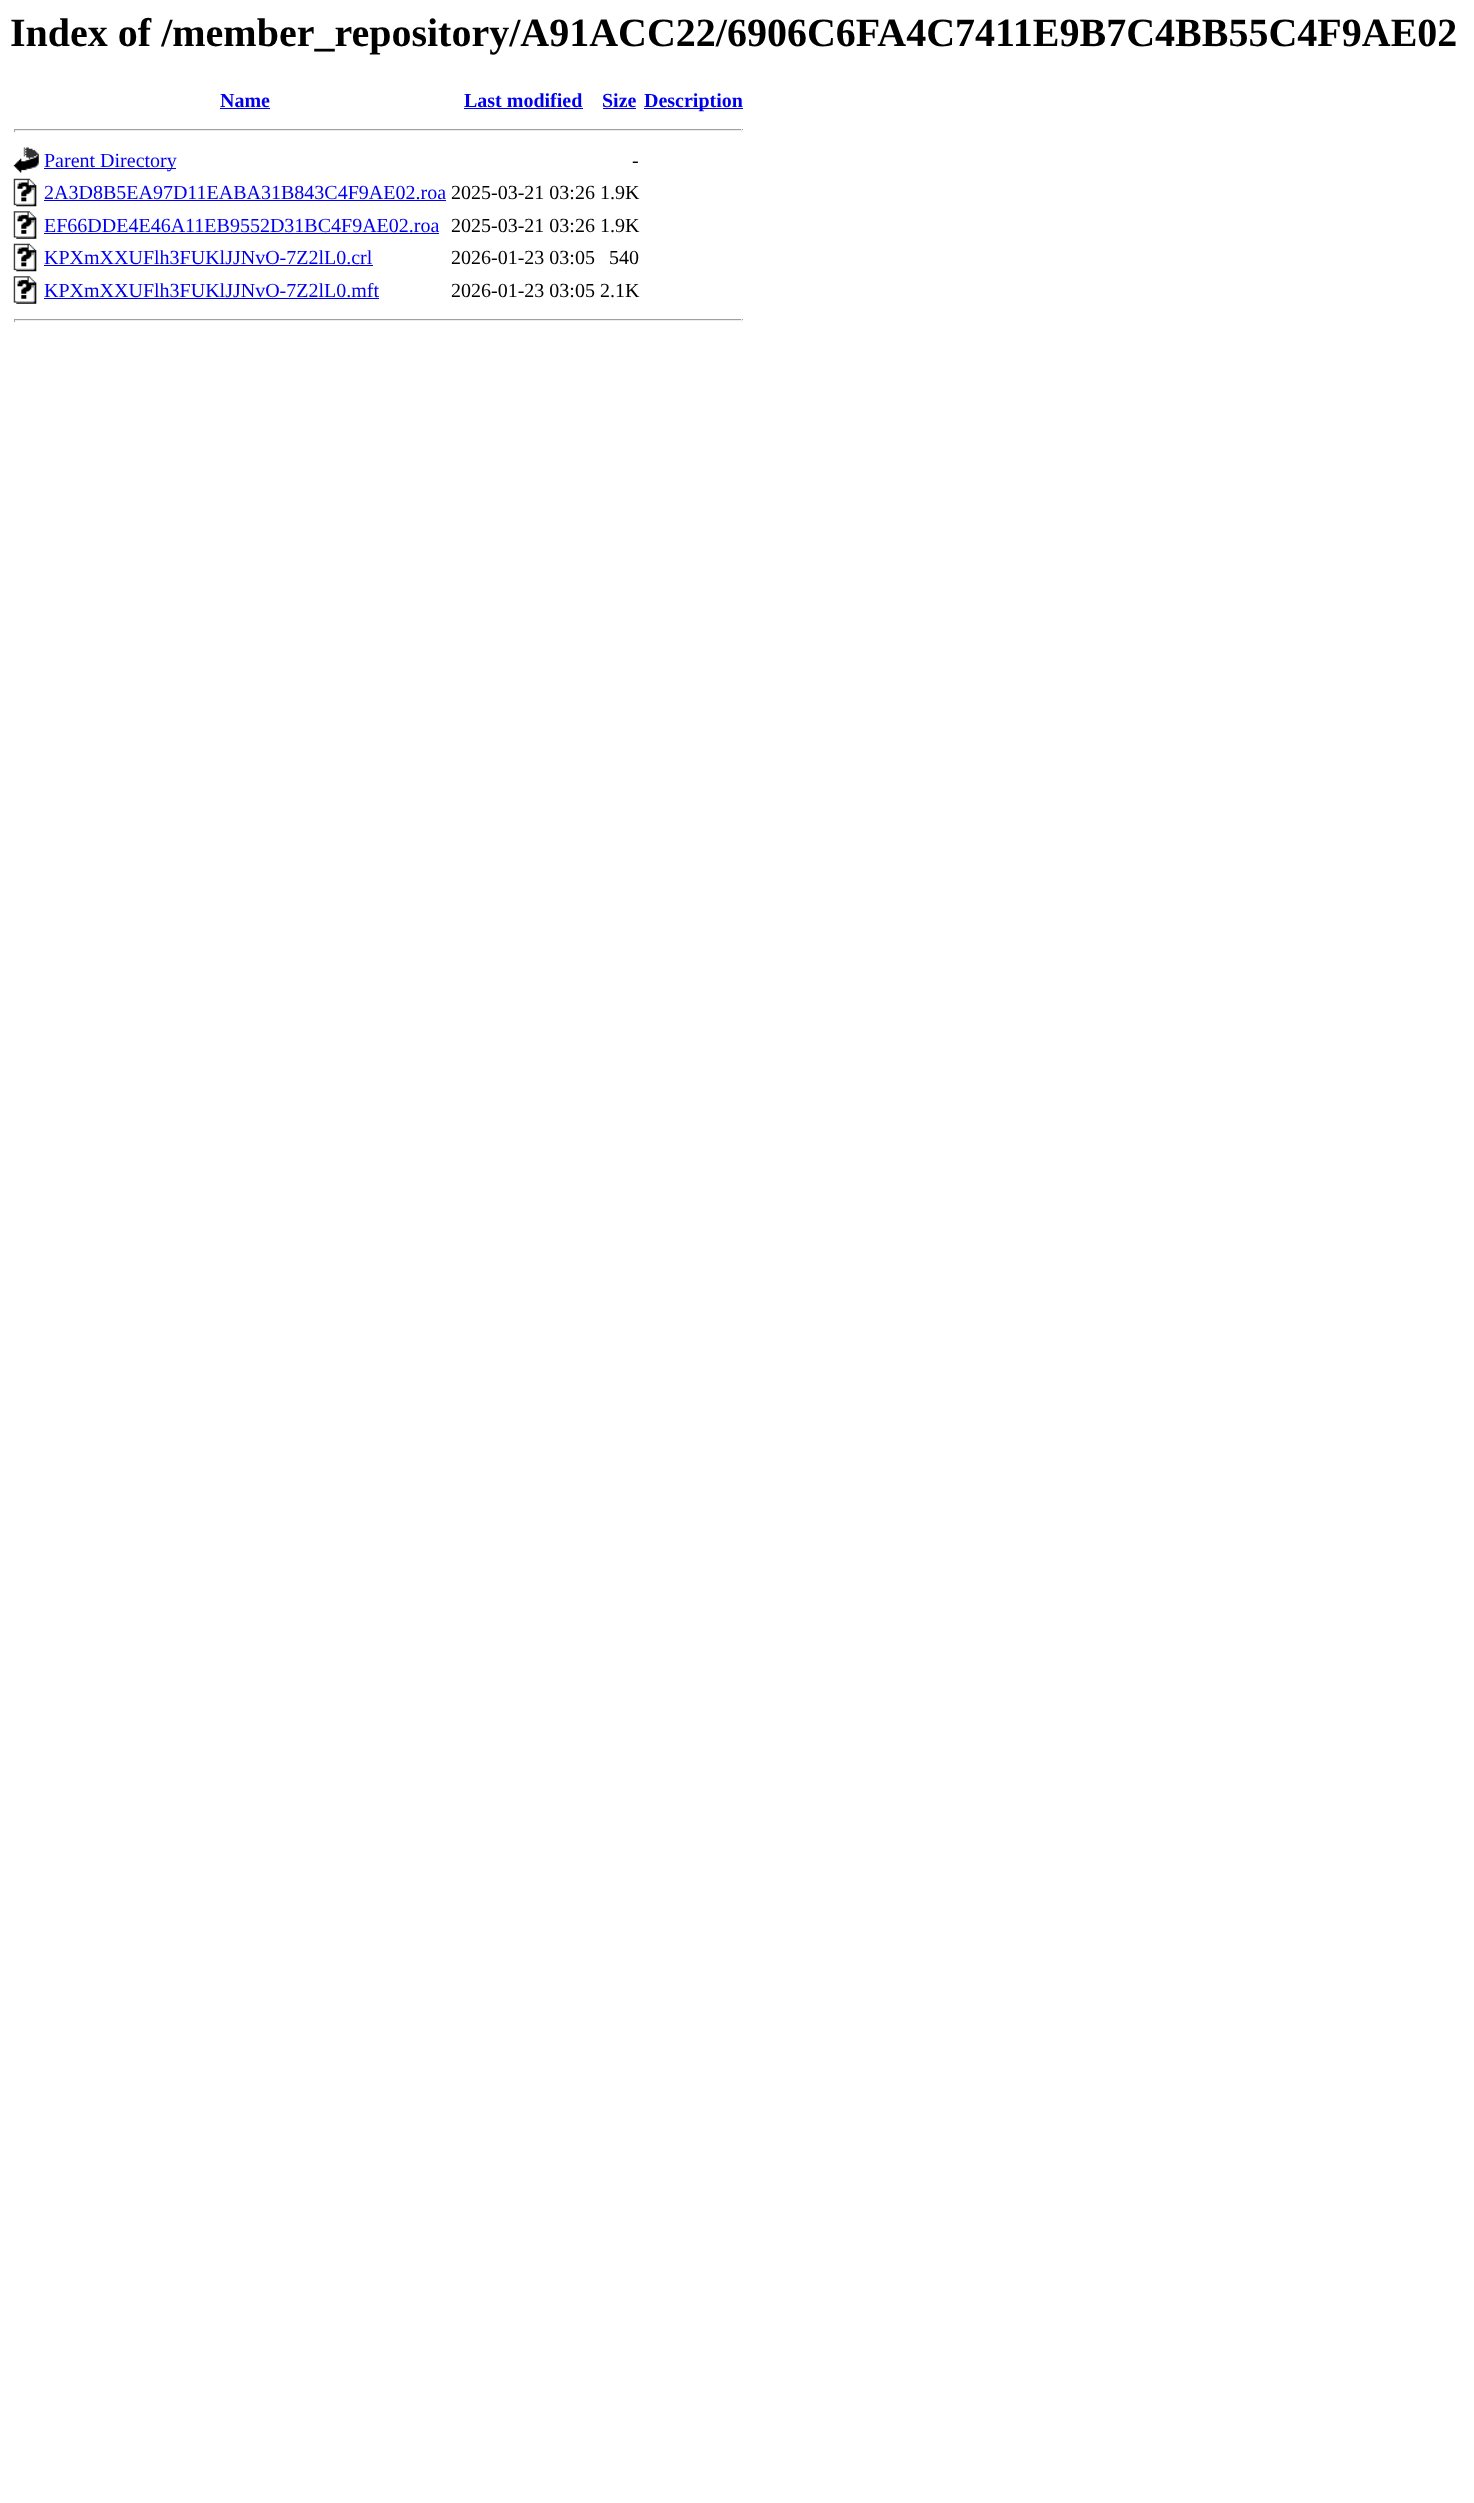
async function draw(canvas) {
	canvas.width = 1474;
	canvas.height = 2503;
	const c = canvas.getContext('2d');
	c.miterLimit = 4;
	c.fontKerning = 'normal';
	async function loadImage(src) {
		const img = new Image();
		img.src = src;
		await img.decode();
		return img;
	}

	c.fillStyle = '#fff';
	c.fillRect(0, 0, 1474, 2503);
	c.font = 'bold 40px Liberation Serif';
	c.fillStyle = '#000';
	c.fillText('Index of /member_repository/A91ACC22/6906C6FA4C7411E9B7C4BB55C4F9AE02', 10, 46);
	c.font = 'bold 20px Liberation Serif';
	c.fillStyle = '#00e';
	c.fillText('Name', 220, 107);
	c.fillRect(220, 108, 50, 1);
	c.fillText('Last modified', 464, 107);
	c.fillRect(464, 108, 119, 1);
	c.fillText('Size', 602, 107);
	c.fillRect(603, 108, 33, 1);
	c.fillRect(644, 108, 99, 1);
	c.fillText('Description', 644, 107);
	for (const [x, y, w, h, color] of [
		[14, 129, 729, 1, '#9f9f9f'],
		[741, 129, 1, 3, '#eee'],
		[14, 130, 729, 1, '#eee'],
		[14, 129, 1, 3, '#9f9f9f'],
	]) {
		c.fillStyle = color;
		c.fillRect(x, y, w, h);
	}
	c.drawImage(await loadImage('img1.png'), 13, 147, 26, 26);
	c.fillStyle = '#00e';
	c.fillRect(44, 168, 132, 1);
	c.font = '20px Liberation Serif';
	c.fillText('Parent Directory', 44, 167);
	c.fillStyle = '#000';
	c.fillText('-', 632, 167);
	c.drawImage(await loadImage('img2.png'), 13, 178, 24, 29);
	c.fillStyle = '#00e';
	c.fillText('2A3D8B5EA97D11EABA31B843C4F9AE02.roa', 44, 199);
	c.fillRect(44, 200, 402, 1);
	c.fillStyle = '#000';
	c.fillText('2025-03-21 03:26 1.9K', 451, 199);
	c.drawImage(await loadImage('img3.png'), 13, 211, 24, 28);
	c.fillStyle = '#00e';
	c.fillText('EF66DDE4E46A11EB9552D31BC4F9AE02.roa', 44, 232);
	c.fillRect(44, 233, 395, 1);
	c.fillStyle = '#000';
	c.fillText('2025-03-21 03:26 1.9K', 451, 232);
	c.drawImage(await loadImage('img2.png'), 13, 243, 24, 29);
	c.fillStyle = '#00e';
	c.fillText('KPXmXXUFlh3FUKlJJNvO-7Z2lL0.crl', 44, 264);
	c.fillRect(44, 265, 329, 1);
	c.fillStyle = '#000';
	c.fillText('2026-01-23 03:05', 451, 264);
	c.fillText('540', 609, 264);
	c.drawImage(await loadImage('img4.png'), 13, 276, 24, 28);
	c.fillStyle = '#00e';
	c.fillText('KPXmXXUFlh3FUKlJJNvO-7Z2lL0.mft', 44, 297);
	c.fillRect(44, 298, 335, 1);
	c.fillStyle = '#000';
	c.fillText('2026-01-23 03:05 2.1K', 451, 297);
	for (const [x, y, w, h, color] of [
		[14, 319, 729, 1, '#9f9f9f'],
		[741, 319, 1, 3, '#eee'],
		[14, 320, 729, 1, '#eee'],
		[14, 319, 1, 3, '#9f9f9f'],
	]) {
		c.fillStyle = color;
		c.fillRect(x, y, w, h);
	}
}

draw(document.querySelector('canvas'));
